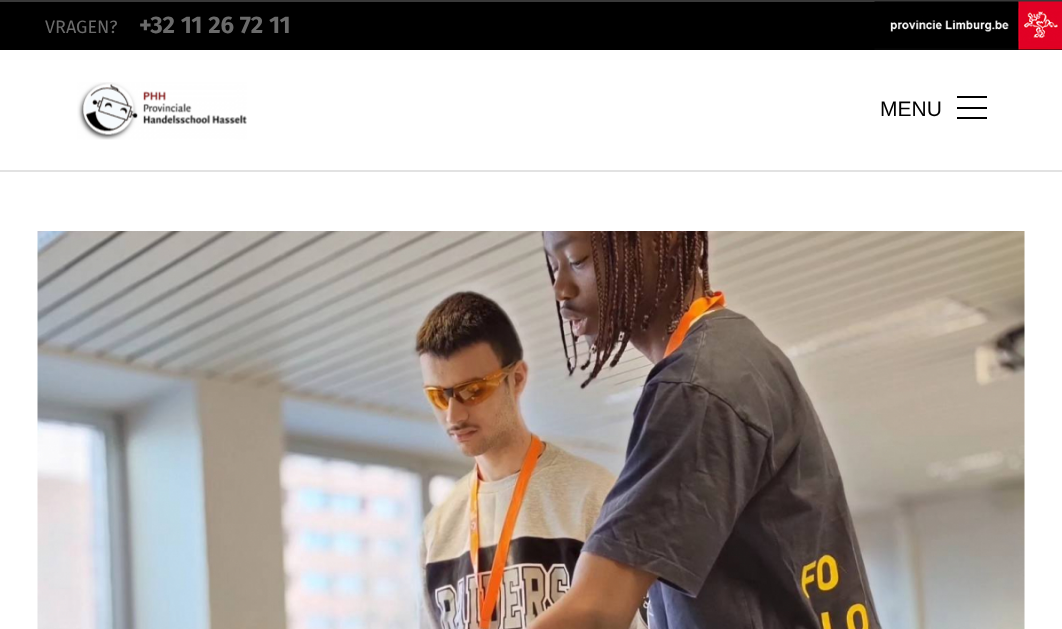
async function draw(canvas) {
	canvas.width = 1062;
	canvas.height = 629;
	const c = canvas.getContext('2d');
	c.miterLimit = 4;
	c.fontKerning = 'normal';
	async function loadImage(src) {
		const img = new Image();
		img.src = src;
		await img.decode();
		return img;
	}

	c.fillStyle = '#fff';
	c.fillRect(0, 0, 1062, 629);
	c.fillStyle = '#000';
	c.fillRect(0, 2, 1062, 48);
	c.fillStyle = '#393939';
	c.fillRect(0, 0, 1062, 2);
	c.font = '18px Fira Sans';
	c.fillStyle = '#6b6b6b';
	c.fillText('VRAGEN?', 45, 33);
	c.font = 'bold 24px Fira Sans';
	c.fillText('+32 11 26 72 11', 139, 33);
	c.drawImage(await loadImage('img1.png'), 874, 1, 188, 49);
	c.fillStyle = '#e2e2e2';
	c.fillRect(0, 170, 1062, 2);
	c.drawImage(await loadImage('img2.png'), 77, 82, 170, 58);
	c.font = '21px Liberation Sans';
	c.fillStyle = '#000';
	c.fillText('MENU', 880, 116);
	for (const [x, y, w, h, color] of [
		[957, 107, 30, 2, '#000'],
		[957, 96, 30, 2, '#000'],
		[957, 117, 30, 2, '#000'],
	]) {
		c.fillStyle = color;
		c.fillRect(x, y, w, h);
	}
	c.drawImage(await loadImage('img3.png'), 37, 231, 988, 398);
}

draw(document.querySelector('canvas'));
